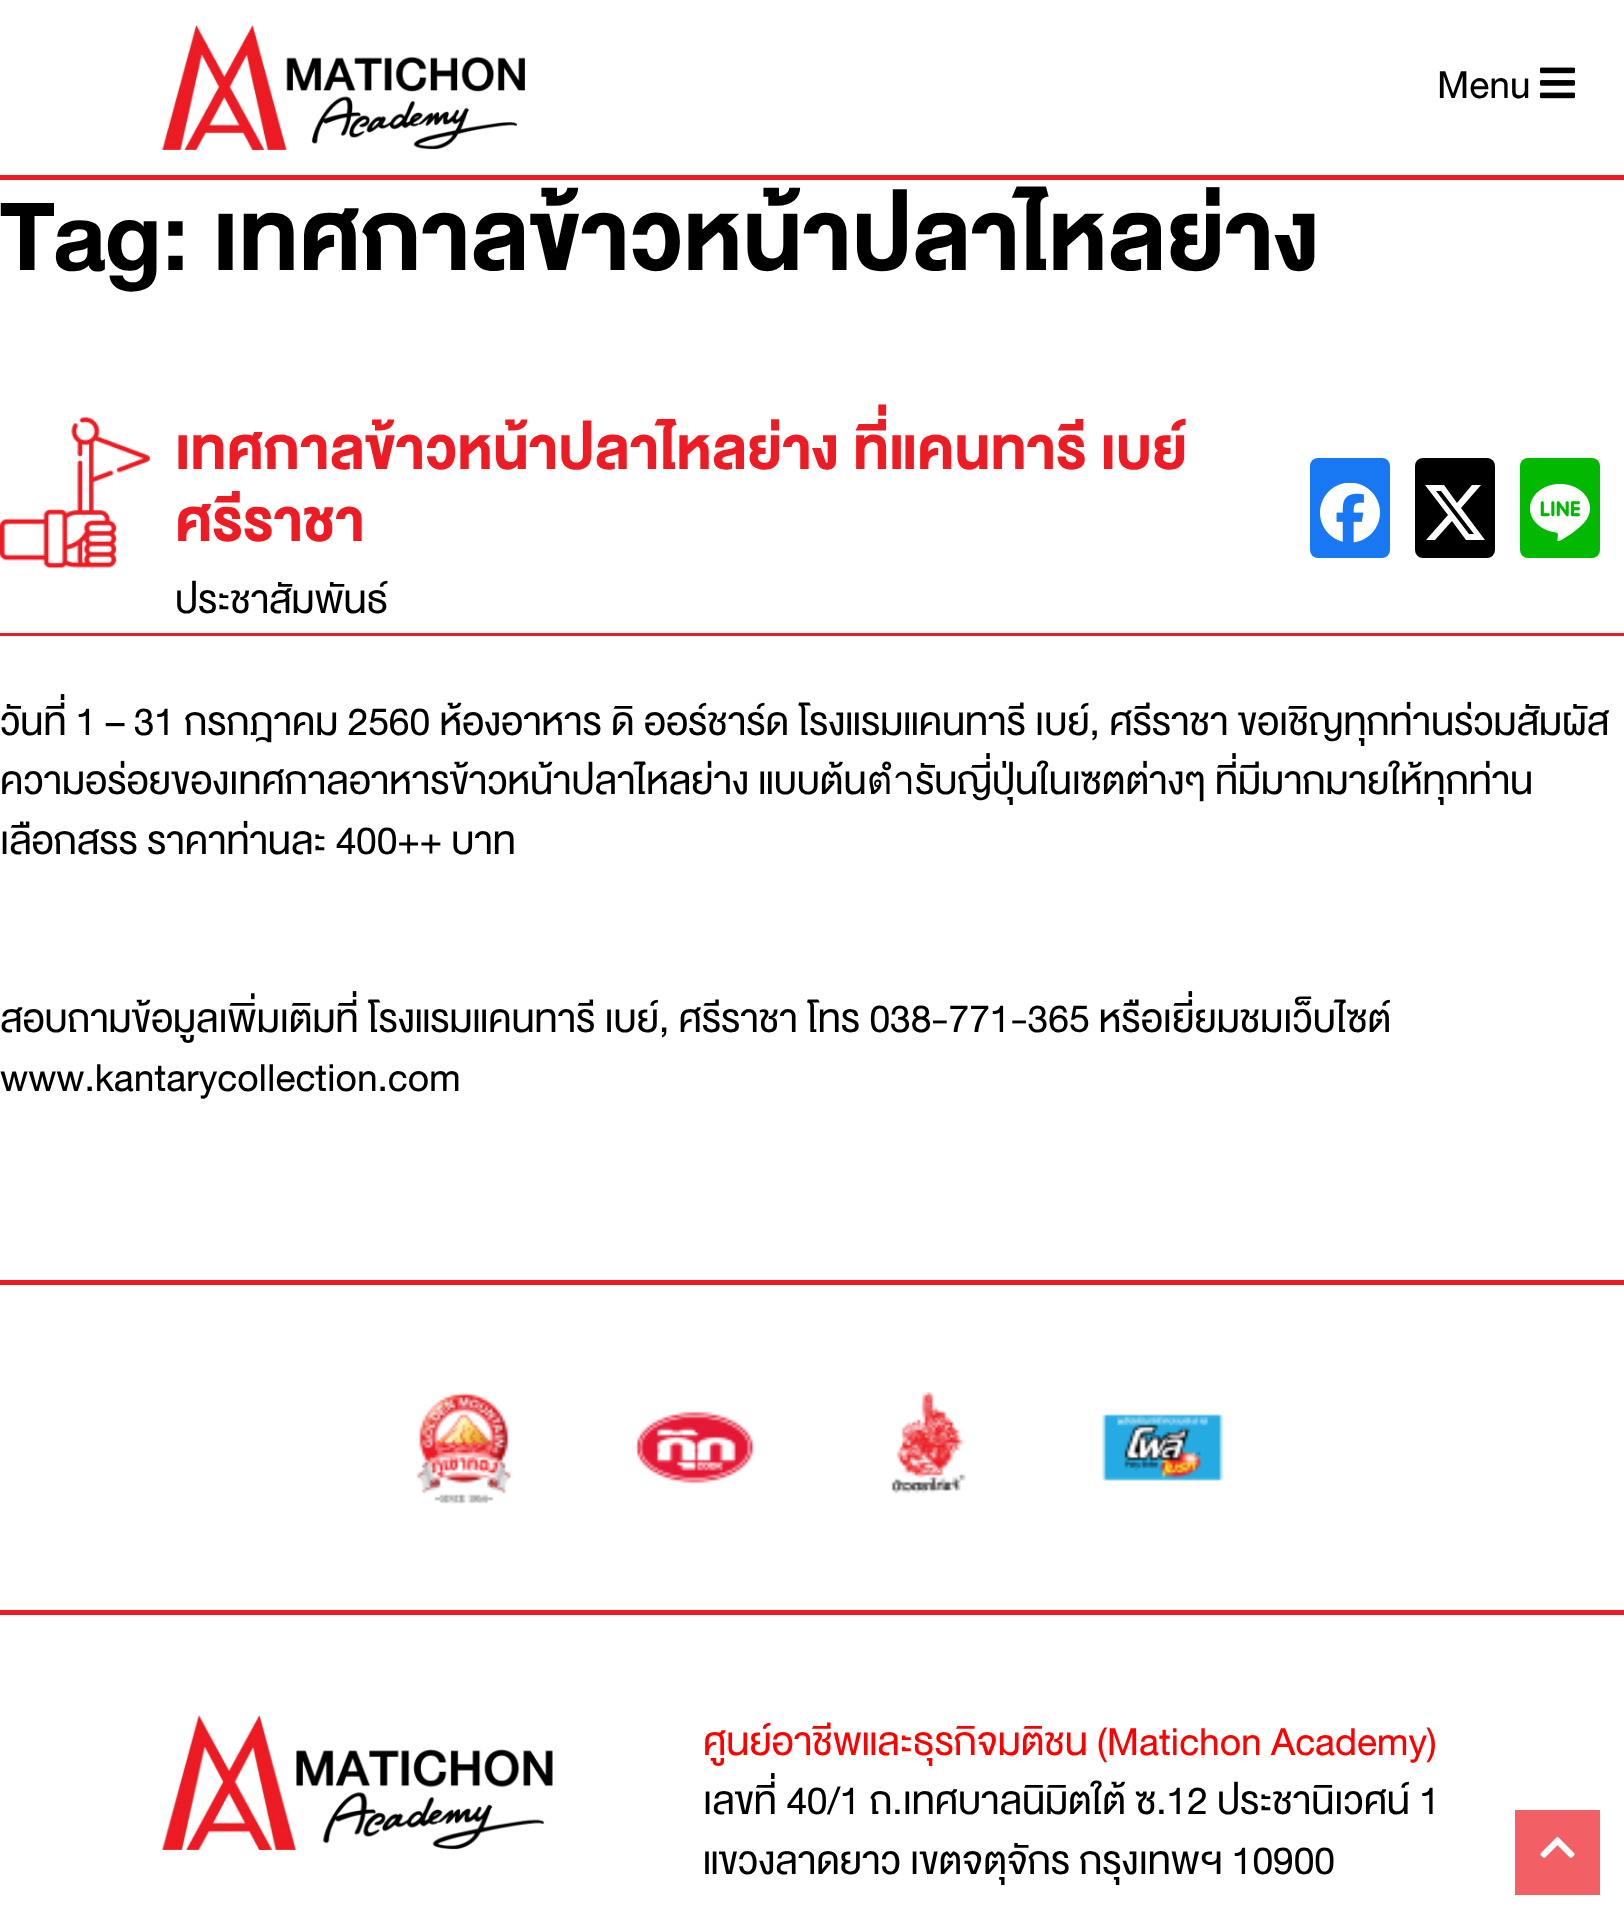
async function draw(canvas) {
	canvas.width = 1624;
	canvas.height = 1920;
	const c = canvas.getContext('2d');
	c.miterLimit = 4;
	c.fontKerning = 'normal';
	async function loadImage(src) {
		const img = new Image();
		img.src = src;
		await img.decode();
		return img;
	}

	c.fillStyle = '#fff';
	c.fillRect(0, 0, 1624, 1920);
	c.fillStyle = '#ed1c24';
	c.fillRect(0, 175, 1624, 5);
	c.drawImage(await loadImage('img1.png'), 162, 25, 363, 125);
	c.font = '40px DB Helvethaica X';
	c.fillStyle = '#000';
	c.fillText('Menu', 1437, 98);
	c.drawImage(await loadImage('img2.png'), 1540, 67, 35, 32);
	c.font = 'bold 100px DB Helvethaica X';
	c.fillText('Tag: เทศกาลข้าวหน้าปลาไหลย่าง', 0, 270);
	c.fillStyle = '#ed1c24';
	c.fillRect(0, 633, 1624, 3);
	c.drawImage(await loadImage('img3.png'), 0, 417, 150, 151);
	c.font = 'bold 60px DB Helvethaica X';
	c.fillText('เทศกาลข้าวหน้าปลาไหลย่าง ที่แคนทารี เบย์', 175, 469);
	c.fillText('ศรีราชา', 175, 541);
	c.font = '40px DB Helvethaica X';
	c.fillStyle = '#000';
	c.fillText('ประชาสัมพันธ์', 175, 613);
	c.fillStyle = '#1877f2';
	c.beginPath();
	c.roundRect(1310, 458, 80, 100, 8);
	c.fill();
	c.drawImage(await loadImage('img4.png'), 1320, 483, 60, 60);
	c.fillStyle = '#000';
	c.beginPath();
	c.roundRect(1415, 458, 80, 100, 8);
	c.fill();
	c.fillStyle = '#fff';
	c.beginPath();
	c.moveTo(1472, 485);
	c.lineTo(1481, 485);
	c.lineTo(1461, 508);
	c.lineTo(1485, 540);
	c.lineTo(1466, 540);
	c.lineTo(1452, 521);
	c.lineTo(1435, 540);
	c.lineTo(1426, 540);
	c.lineTo(1448, 515);
	c.lineTo(1425, 485);
	c.lineTo(1444, 485);
	c.lineTo(1457, 503);
	c.closePath();
	c.moveTo(1469, 534);
	c.lineTo(1474, 534);
	c.lineTo(1441, 491);
	c.lineTo(1436, 491);
	c.closePath();
	c.fill();
	c.fillStyle = '#00b900';
	c.beginPath();
	c.roundRect(1520, 458, 80, 100, 8);
	c.fill();
	c.drawImage(await loadImage('img5.png'), 1530, 483, 60, 59);
	c.fillStyle = '#000';
	for (const [text, x, y] of [
		['วันที่ 1 – 31 กรกฎาคม 2560 ห้องอาหาร ดิ ออร์ชาร์ด โรงแรมแคนทารี เบย์, ศรีราชา ขอเชิญทุกท่านร่วมสัมผัส', 0, 735],
		['ความอร่อยของเทศกาลอาหารข้าวหน้าปลาไหลย่าง แบบต้นตำรับญี่ปุ่นในเซตต่างๆ ที่มีมากมายให้ทุกท่าน', 0, 794],
		['เลือกสรร ราคาท่านละ 400++ บาท', 0, 854],
		['สอบถามข้อมูลเพิ่มเติมที่ โรงแรมแคนทารี เบย์, ศรีราชา โทร 038-771-365 หรือเยี่ยมชมเว็บไซต์', 0, 1032],
		['www.kantarycollection.com', 0, 1091],
	]) {
		c.fillText(text, x, y);
	}
	c.fillStyle = '#ed1c24';
	c.fillRect(0, 1280, 1624, 5);
	c.drawImage(await loadImage('img6.png'), 416, 1392, 97, 112);
	c.drawImage(await loadImage('img7.png'), 635, 1411, 119, 73);
	c.drawImage(await loadImage('img8.png'), 891, 1391, 75, 103);
	c.drawImage(await loadImage('img9.png'), 1102, 1414, 122, 67);
	c.fillRect(0, 1610, 1624, 5);
	c.drawImage(await loadImage('img10.png'), 162, 1715, 391, 135);
	c.fillStyle = '#f00';
	c.fillText('ศูนย์อาชีพและธุรกิจมติชน (Matichon Academy)', 703, 1755);
	c.fillStyle = '#000';
	c.fillText('เลขที่ 40/1 ถ.เทศบาลนิมิตใต้ ซ.12 ประชานิเวศน์ 1', 703, 1814);
	c.fillText('แขวงลาดยาว เขตจตุจักร กรุงเทพฯ 10900', 703, 1874);
	c.fillStyle = '#f26066';
	c.fillRect(1515, 1810, 85, 85);
	c.drawImage(await loadImage('img11.png'), 1540, 1837, 35, 21);
}

draw(document.querySelector('canvas'));
